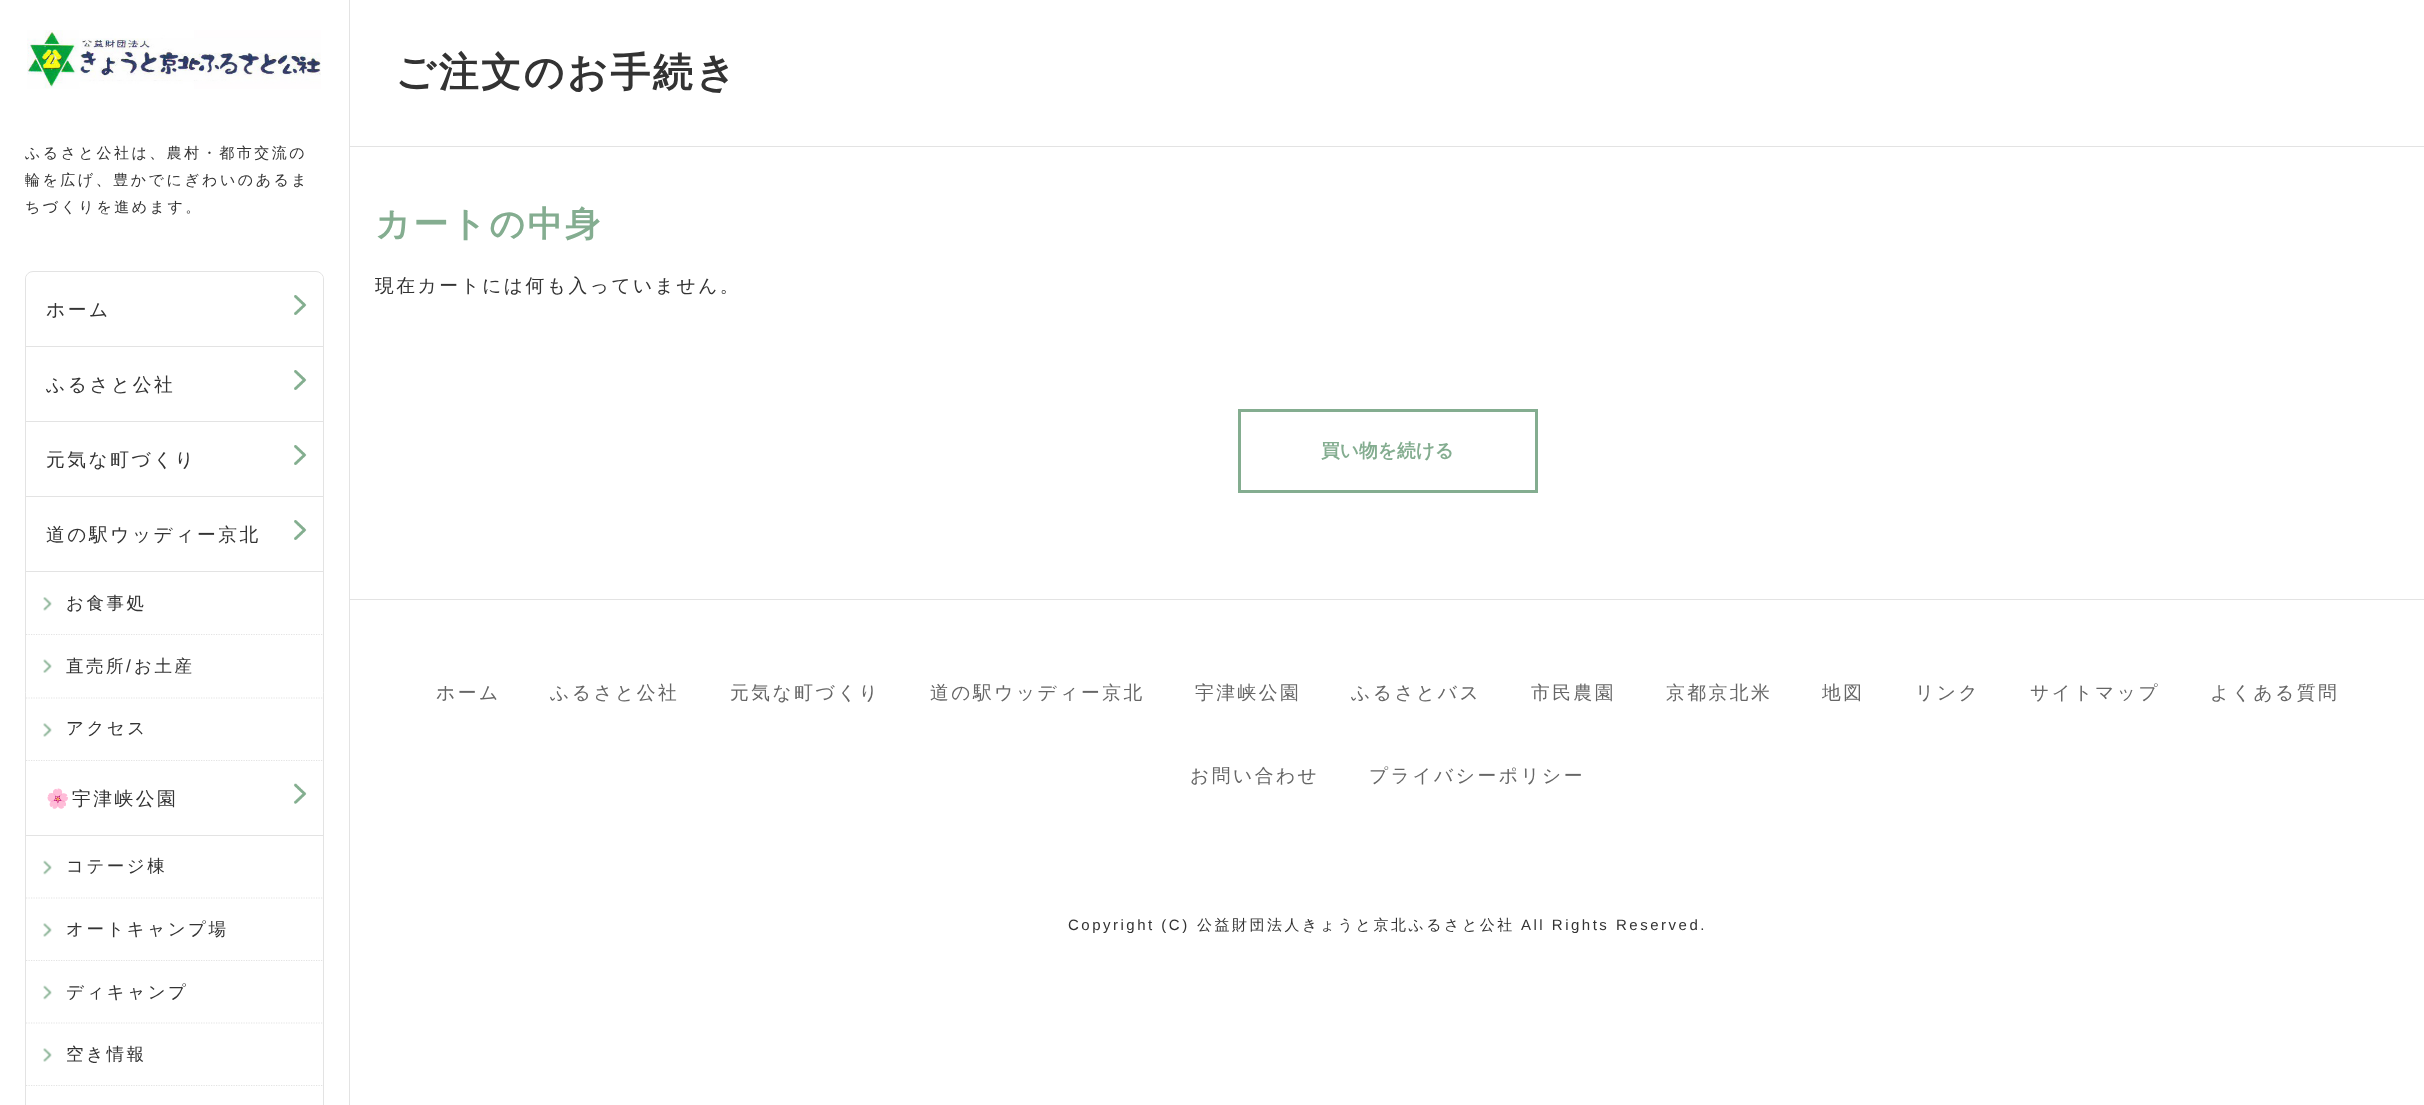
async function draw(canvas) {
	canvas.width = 2424;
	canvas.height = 1105;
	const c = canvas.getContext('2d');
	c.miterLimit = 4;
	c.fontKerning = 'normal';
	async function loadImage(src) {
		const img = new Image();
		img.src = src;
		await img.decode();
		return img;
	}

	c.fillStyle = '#fff';
	c.fillRect(0, 0, 2424, 1105);
	c.fillStyle = '#e3e3e3';
	c.fillRect(349, 0, 1, 1105);
	c.drawImage(await loadImage('img1.png'), 27, 30, 294, 59);
	c.letterSpacing = '2.5px';
	c.font = '500 15px WenQuanYi Zen Hei';
	c.fillStyle = '#333';
	for (const [text, x, y] of [
		['ふるさと公社は、農村・都市交流の', 25, 158],
		['輪を広げ、豊かでにぎわいのあるま', 25, 185],
		['ちづくりを進めます。', 25, 212],
	]) {
		c.fillText(text, x, y);
	}
	c.beginPath();
	c.roundRect(25.5, 271.5, 298, 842, 7.5);
	c.strokeStyle = '#e3e3e3';
	c.stroke();
	c.fillStyle = '#fff';
	c.beginPath();
	c.roundRect(26, 273, 297, 75, [6, 6, 0, 0]);
	c.fill();
	c.fillStyle = '#e3e3e3';
	c.fillRect(26, 346, 297, 1);
	c.font = '500 18.75px WenQuanYi Zen Hei';
	c.fillStyle = '#333';
	c.fillText('ホーム', 46, 316);
	c.drawImage(await loadImage('img2.png'), 294, 295, 13, 20);
	c.fillStyle = '#e3e3e3';
	c.fillRect(26, 421, 297, 1);
	c.fillStyle = '#333';
	c.fillText('ふるさと公社', 46, 391);
	c.drawImage(await loadImage('img2.png'), 294, 370, 13, 20);
	c.fillStyle = '#e3e3e3';
	c.fillRect(26, 496, 297, 1);
	c.fillStyle = '#333';
	c.fillText('元気な町づくり', 46, 466);
	c.drawImage(await loadImage('img2.png'), 294, 445, 13, 20);
	c.fillStyle = '#e3e3e3';
	c.fillRect(26, 571, 297, 1);
	c.fillStyle = '#333';
	c.fillText('道の駅ウッディー京北', 46, 541);
	c.drawImage(await loadImage('img2.png'), 294, 520, 13, 20);
	c.beginPath();
	c.moveTo(26, 634.5);
	c.lineTo(322.5, 634.5);
	c.lineWidth = 1.2;
	c.setLineDash([1.25, 1.25]);
	c.stroke();
	c.drawImage(await loadImage('img3.png'), 43, 597, 9, 14);
	c.font = '500 17.5px WenQuanYi Zen Hei';
	c.fillText('お食事処', 66, 609);
	c.fillStyle = '#fff';
	c.fillRect(26, 635, 296, 1);
	c.beginPath();
	c.moveTo(26, 698);
	c.lineTo(322.5, 698);
	c.stroke();
	c.drawImage(await loadImage('img4.png'), 43, 659, 9, 14);
	c.fillStyle = '#333';
	c.fillText('直売所', 66, 672);
	c.font = '17.5px Liberation Sans';
	c.fillText('/', 126, 672);
	c.font = '500 17.5px WenQuanYi Zen Hei';
	c.fillText('お土産', 134, 672);
	c.beginPath();
	c.moveTo(26, 760.5);
	c.lineTo(322.5, 760.5);
	c.stroke();
	c.drawImage(await loadImage('img5.png'), 43, 723, 9, 14);
	c.fillText('アクセス', 66, 734);
	c.fillStyle = '#fff';
	c.fillRect(26, 761, 296, 1);
	c.fillStyle = '#e3e3e3';
	c.fillRect(26, 835, 297, 1);
	c.font = '18.75px Noto Color Emoji';
	c.fillStyle = '#333';
	c.fillText('🌸', 46, 805);
	c.font = '500 18.75px WenQuanYi Zen Hei';
	c.fillText('宇津峡公園', 72, 805);
	c.drawImage(await loadImage('img6.png'), 293, 783, 14, 21);
	c.beginPath();
	c.moveTo(26, 898);
	c.lineTo(322.5, 898);
	c.stroke();
	c.drawImage(await loadImage('img7.png'), 43, 860, 9, 15);
	c.font = '500 17.5px WenQuanYi Zen Hei';
	c.fillText('コテージ棟', 66, 872);
	c.beginPath();
	c.moveTo(26, 960.5);
	c.lineTo(322.5, 960.5);
	c.stroke();
	c.drawImage(await loadImage('img5.png'), 43, 923, 9, 14);
	c.fillText('オートキャンプ場', 66, 935);
	c.fillStyle = '#fff';
	c.fillRect(26, 961, 296, 1);
	c.beginPath();
	c.moveTo(26, 1023);
	c.lineTo(322.5, 1023);
	c.stroke();
	c.drawImage(await loadImage('img7.png'), 43, 985, 9, 15);
	c.fillStyle = '#333';
	c.fillText('ディキャンプ', 66, 998);
	c.beginPath();
	c.moveTo(26, 1085.5);
	c.lineTo(322.5, 1085.5);
	c.stroke();
	c.drawImage(await loadImage('img5.png'), 43, 1048, 9, 14);
	c.fillText('空き情報', 66, 1060);
	c.fillStyle = '#fff';
	c.fillRect(26, 1086, 296, 1);
	c.fillStyle = '#e3e3e3';
	c.fillRect(350, 146, 2074, 1);
	c.font = 'bold 40px WenQuanYi Zen Hei';
	c.fillStyle = '#333';
	c.fillText('ご注文のお手続き', 395, 86);
	c.font = 'bold 35px WenQuanYi Zen Hei';
	c.fillStyle = '#84ad90';
	c.fillText('カートの中身', 375, 236);
	c.font = '500 18.75px WenQuanYi Zen Hei';
	c.fillStyle = '#333';
	c.fillText('現在カートには何も入っていません。', 375, 292);
	c.strokeStyle = '#84ad90';
	c.lineWidth = 3;
	c.setLineDash([]);
	c.strokeRect(1239.5, 410.5, 297, 81);
	c.letterSpacing = '0px';
	c.font = 'bold 18.75px WenQuanYi Zen Hei';
	c.fillStyle = '#84ad90';
	c.fillText('買い物を続ける', 1321, 457);
	c.fillStyle = '#e3e3e3';
	c.fillRect(350, 599, 2074, 1);
	c.letterSpacing = '2.5px';
	c.font = '500 18.75px WenQuanYi Zen Hei';
	c.fillStyle = '#666';
	for (const [text, x, y] of [
		['ホーム', 436, 699],
		['ふるさと公社', 550, 699],
		['元気な町づくり', 730, 699],
		['道の駅ウッディー京北', 930, 699],
		['宇津峡公園', 1195, 699],
		['ふるさとバス', 1351, 699],
		['市民農園', 1531, 699],
		['京都京北米', 1666, 699],
		['地図', 1822, 699],
		['リンク', 1915, 699],
		['サイトマップ', 2030, 699],
		['よくある質問', 2210, 699],
		['お問い合わせ', 1190, 782],
		['プライバシーポリシー', 1369, 782],
	]) {
		c.fillText(text, x, y);
	}
	c.font = '15px Liberation Sans';
	c.fillStyle = '#333';
	c.fillText('Copyright (C)', 1068, 930);
	c.font = '500 15px WenQuanYi Zen Hei';
	c.fillText('公益財団法人きょうと京北ふるさと公社', 1197, 930);
	c.font = '15px Liberation Sans';
	c.fillText('All Rights Reserved.', 1521, 930);
}

draw(document.querySelector('canvas'));
